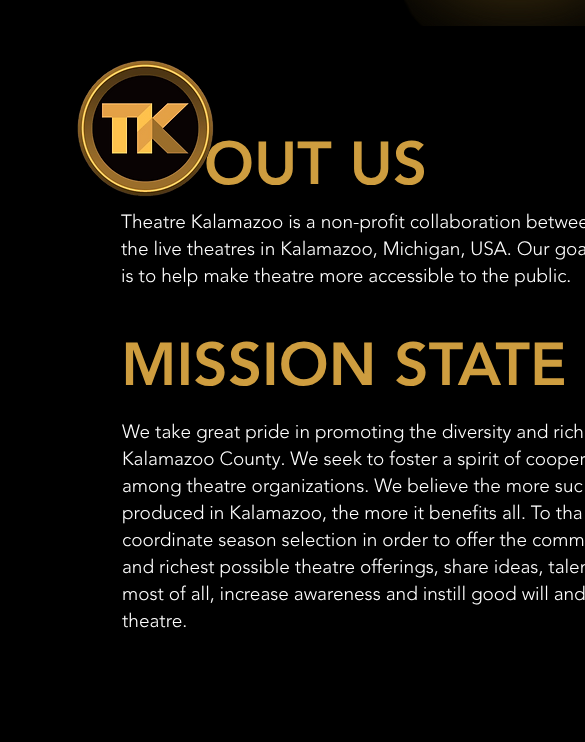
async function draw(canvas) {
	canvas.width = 585;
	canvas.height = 742;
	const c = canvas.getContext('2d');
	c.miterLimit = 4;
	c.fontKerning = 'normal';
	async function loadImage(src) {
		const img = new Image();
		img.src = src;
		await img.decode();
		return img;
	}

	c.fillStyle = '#000';
	c.fillRect(0, 0, 585, 742);
	c.drawImage(await loadImage('img1.png'), 404, 0, 181, 26);
	c.font = '900 60px "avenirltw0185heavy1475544"';
	c.fillStyle = '#ce9d3f';
	c.fillText('OUT US', 204, 184);
	c.drawImage(await loadImage('img2.png'), 77, 60, 137, 137);
	c.font = '300 19px "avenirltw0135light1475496"';
	c.fillStyle = '#fff';
	for (const [text, x, y] of [
		['Theatre Kalamazoo is a non-profit collaboration betwee', 121, 228],
		['the live theatres in Kalamazoo, Michigan, USA. Our goa', 121, 255],
		['is to help make theatre more accessible to the public.', 121, 282],
	]) {
		c.fillText(text, x, y);
	}
	c.font = '900 60px "avenirltw0185heavy1475544"';
	c.fillStyle = '#ce9d3f';
	c.fillText('MISSION STATE', 121, 385);
	c.font = '300 19px "avenirltw0135light1475496"';
	c.fillStyle = '#fff';
	for (const [text, x, y] of [
		['We take great pride in promoting the diversity and rich', 122, 438],
		['Kalamazoo County. We seek to foster a spirit of cooper', 122, 465],
		['among theatre organizations. We believe the more suc', 122, 492],
		['produced in Kalamazoo, the more it benefits all. To tha', 122, 519],
		['coordinate season selection in order to offer the comm', 122, 546],
		['and richest possible theatre offerings, share ideas, talen', 122, 573],
		['most of all, increase awareness and instill good will and', 122, 600],
		['theatre.', 122, 627],
	]) {
		c.fillText(text, x, y);
	}
}

draw(document.querySelector('canvas'));
